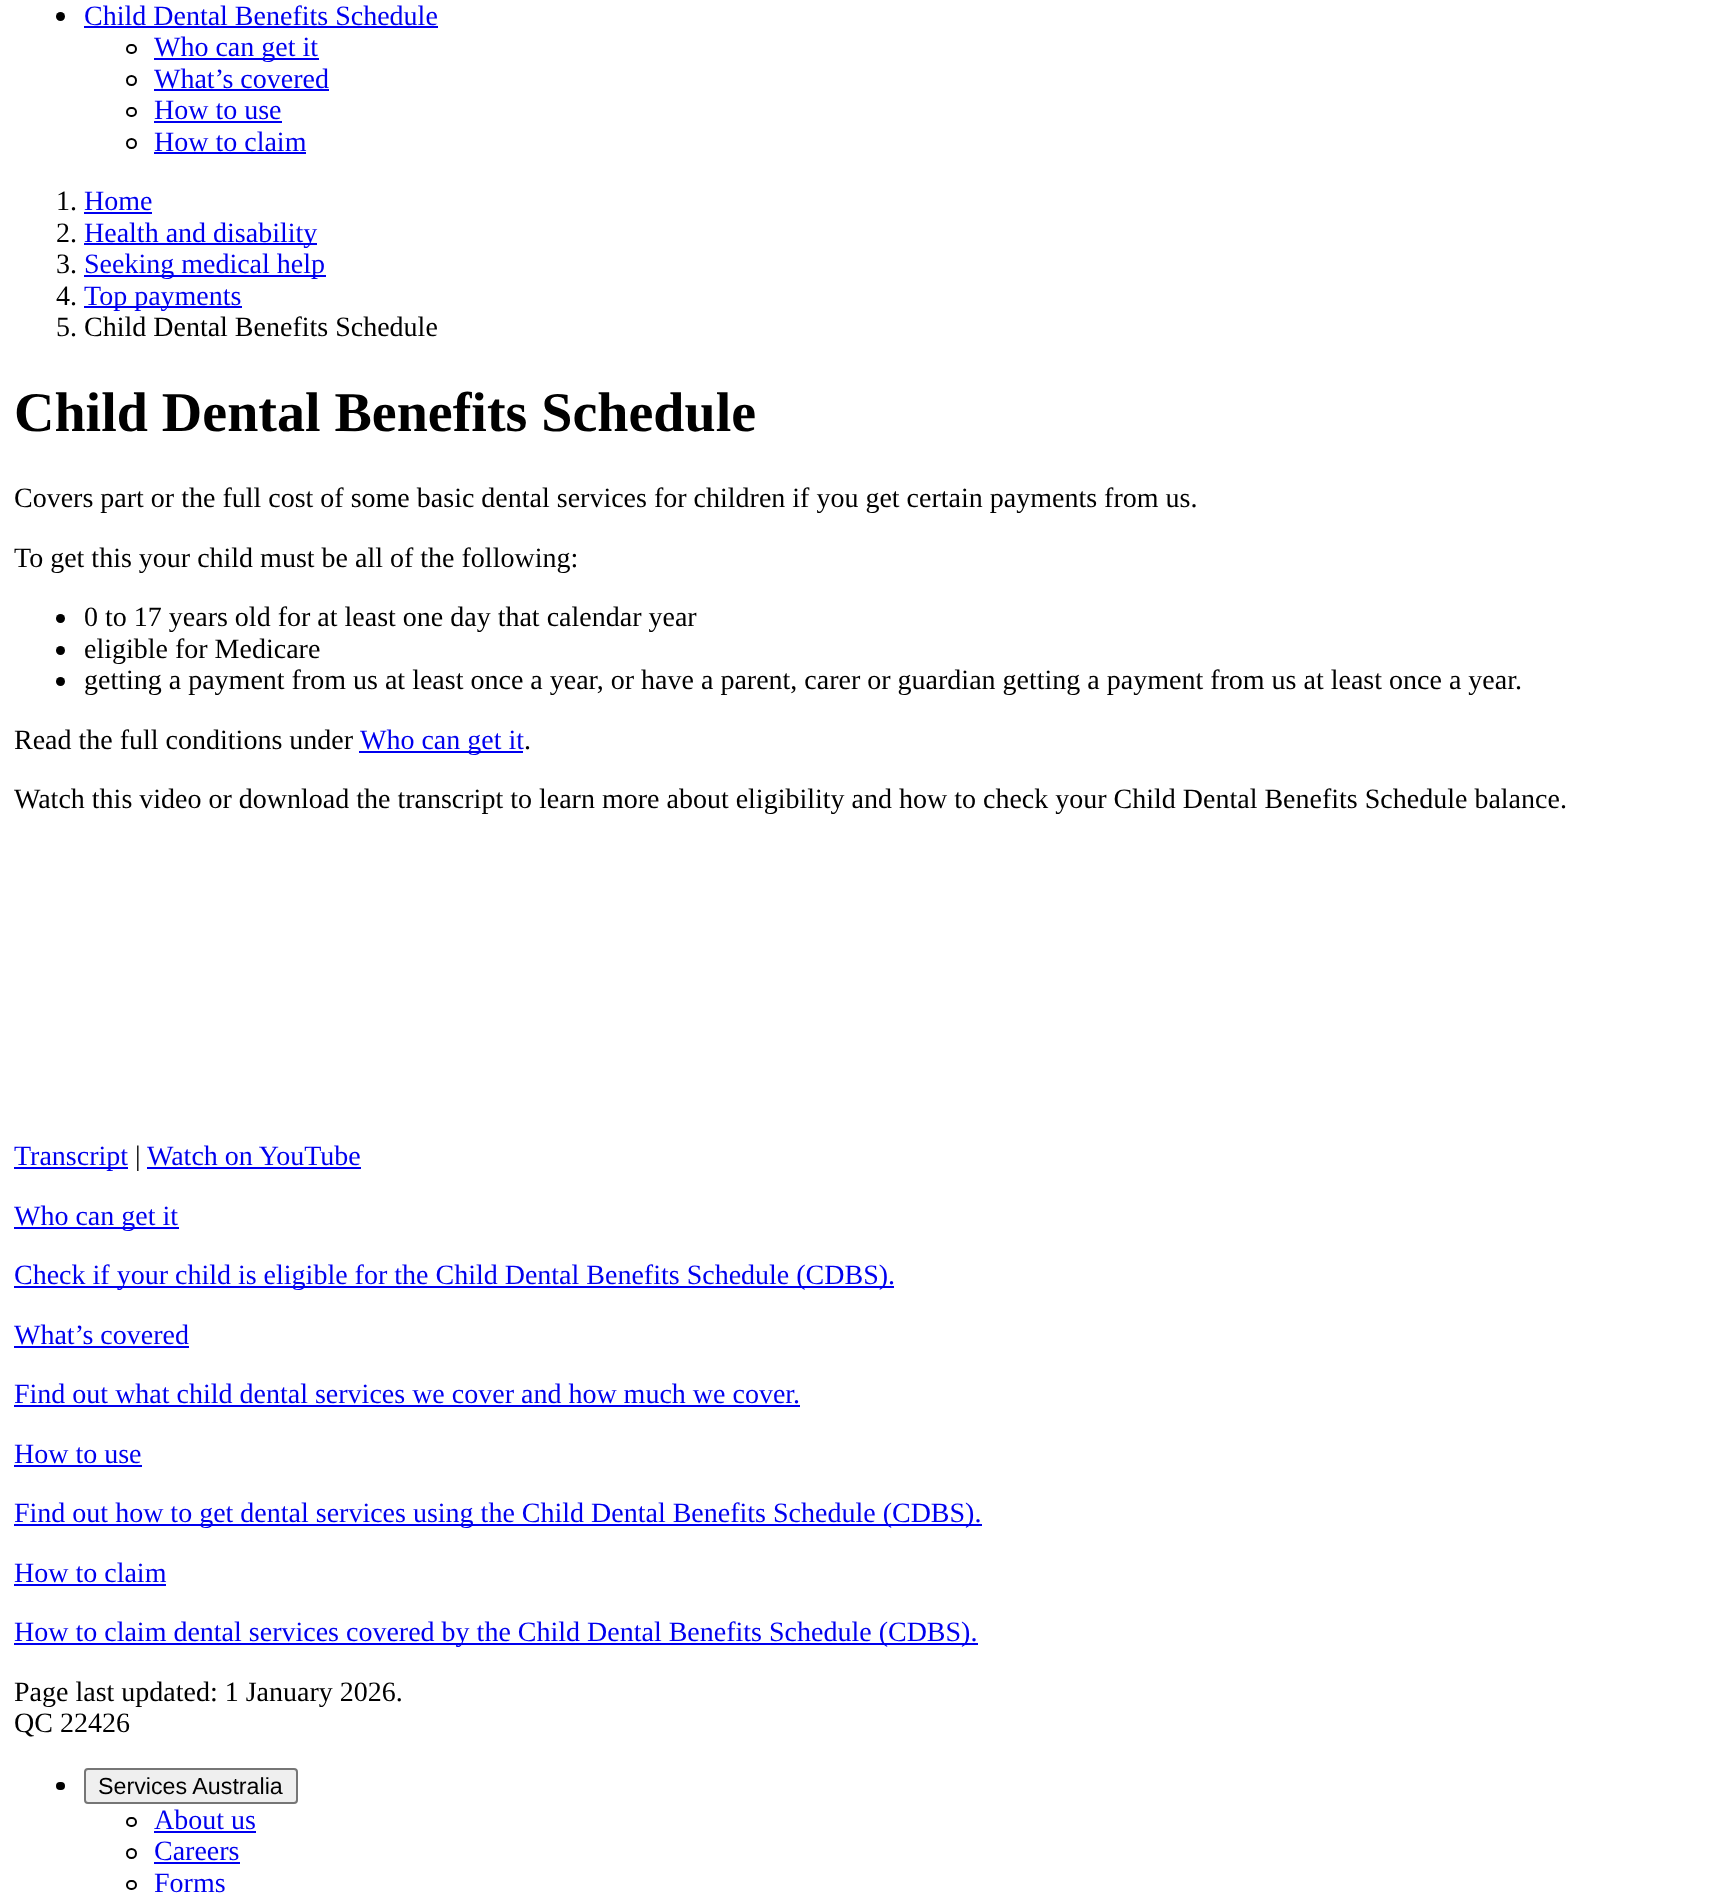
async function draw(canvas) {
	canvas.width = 1719;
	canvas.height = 1894;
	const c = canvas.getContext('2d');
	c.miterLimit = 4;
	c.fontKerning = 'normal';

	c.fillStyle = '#fff';
	c.fillRect(0, 0, 1719, 1894);
	c.fillStyle = '#000';
	c.beginPath();
	c.arc(60.5, 16.5, 4.5, 0, 2 * Math.PI);
	c.fill();
	c.font = '28px Liberation Serif';
	c.fillStyle = '#00e';
	c.fillText('Child Dental Benefits Schedule', 84, 25);
	c.fillRect(84, 26, 354, 2);
	c.beginPath();
	c.roundRect(127, 45, 9, 8, 4);
	c.strokeStyle = '#000';
	c.lineWidth = 2;
	c.stroke();
	c.fillRect(154, 58, 165, 2);
	c.fillText('Who can get it', 154, 56);
	c.beginPath();
	c.arc(131.5, 80.5, 4.5, 0, 2 * Math.PI);
	c.stroke();
	c.fillText('What’s covered', 154, 88);
	c.fillRect(154, 89, 175, 2);
	c.beginPath();
	c.roundRect(127, 108, 9, 8, 4);
	c.stroke();
	c.fillText('How to use', 154, 119);
	c.fillRect(154, 121, 128, 2);
	c.beginPath();
	c.arc(131.5, 143.5, 4.5, 0, 2 * Math.PI);
	c.stroke();
	c.fillText('How to claim', 154, 151);
	c.fillRect(154, 152, 152, 2);
	c.fillStyle = '#000';
	c.fillText('1.', 56, 210);
	c.fillStyle = '#00e';
	c.fillText('Home', 84, 210);
	c.fillRect(84, 212, 68, 2);
	c.fillStyle = '#000';
	c.fillText('2.', 56, 242);
	c.fillStyle = '#00e';
	c.fillRect(84, 243, 233, 2);
	c.fillText('Health and disability', 84, 242);
	c.fillStyle = '#000';
	c.fillText('3.', 56, 273);
	c.fillStyle = '#00e';
	c.fillRect(84, 275, 242, 2);
	c.fillText('Seeking medical help', 84, 273);
	c.fillStyle = '#000';
	c.fillText('4.', 56, 305);
	c.fillStyle = '#00e';
	c.fillRect(84, 306, 158, 2);
	c.fillText('Top payments', 84, 305);
	c.fillStyle = '#000';
	c.fillText('5. Child Dental Benefits Schedule', 56, 336);
	c.font = 'bold 56px Liberation Serif';
	c.fillText('Child Dental Benefits Schedule', 14, 431);
	c.font = '28px Liberation Serif';
	c.fillText('Covers part or the full cost of some basic dental services for children if you get certain payments from us.', 14, 507);
	c.fillText('To get this your child must be all of the following:', 14, 567);
	c.beginPath();
	c.arc(60.5, 618.5, 4.5, 0, 2 * Math.PI);
	c.fill();
	c.fillText('0 to 17 years old for at least one day that calendar year', 84, 626);
	c.beginPath();
	c.arc(60.5, 650.5, 4.5, 0, 2 * Math.PI);
	c.fill();
	c.fillText('eligible for Medicare', 84, 658);
	c.beginPath();
	c.arc(60.5, 681.5, 4.5, 0, 2 * Math.PI);
	c.fill();
	c.fillText('getting a payment from us at least once a year, or have a parent, carer or guardian getting a payment from us at least once a year.', 84, 689);
	c.fillText('Read the full conditions under', 14, 749);
	c.fillStyle = '#00e';
	c.fillRect(359, 751, 164, 2);
	c.fillText('Who can get it', 360, 749);
	c.fillStyle = '#000';
	c.fillText('.', 524, 749);
	c.fillText('Watch this video or download the transcript to learn more about eligibility and how to check your Child Dental Benefits Schedule balance.', 14, 808);
	c.fillStyle = '#00e';
	c.fillRect(14, 1167, 114, 2);
	c.fillText('Transcript', 14, 1165);
	c.fillStyle = '#000';
	c.fillText('|', 135, 1165);
	c.fillStyle = '#00e';
	c.fillText('Watch on YouTube', 147, 1165);
	c.fillRect(147, 1167, 214, 2);
	c.fillRect(14, 1227, 165, 2);
	c.fillText('Who can get it', 14, 1225);
	c.fillRect(14, 1286, 880, 2);
	c.fillText('Check if your child is eligible for the Child Dental Benefits Schedule (CDBS).', 14, 1284);
	c.fillText('What’s covered', 14, 1344);
	c.fillRect(14, 1346, 175, 2);
	c.fillText('Find out what child dental services we cover and how much we cover.', 14, 1403);
	c.fillRect(14, 1405, 786, 2);
	c.fillText('How to use', 14, 1463);
	c.fillRect(14, 1465, 128, 2);
	c.fillRect(14, 1524, 968, 2);
	c.fillText('Find out how to get dental services using the Child Dental Benefits Schedule (CDBS).', 14, 1522);
	c.fillText('How to claim', 14, 1582);
	c.fillRect(14, 1584, 152, 2);
	c.fillRect(14, 1643, 964, 2);
	c.fillText('How to claim dental services covered by the Child Dental Benefits Schedule (CDBS).', 14, 1641);
	c.fillStyle = '#000';
	c.fillText('Page last updated: 1 January 2026.', 14, 1701);
	c.fillText('QC 22426', 14, 1732);
	c.beginPath();
	c.roundRect(56, 1782, 9, 8, 4);
	c.fill();
	c.fillStyle = '#efefef';
	c.beginPath();
	c.roundRect(85, 1769, 212, 34, 3);
	c.fill();
	c.strokeStyle = '#767676';
	c.stroke();
	c.font = '23.25px Liberation Sans';
	c.fillStyle = '#000';
	c.fillText('Services Australia', 98, 1794);
	c.beginPath();
	c.roundRect(127, 1818, 9, 8, 4);
	c.strokeStyle = '#000';
	c.stroke();
	c.font = '28px Liberation Serif';
	c.fillStyle = '#00e';
	c.fillText('About us', 154, 1829);
	c.fillRect(154, 1831, 102, 2);
	c.beginPath();
	c.arc(131.5, 1853.5, 4.5, 0, 2 * Math.PI);
	c.stroke();
	c.fillText('Careers', 154, 1860);
	c.fillRect(154, 1862, 86, 2);
	c.beginPath();
	c.roundRect(127, 1881, 9, 8, 4);
	c.stroke();
	c.fillText('Forms', 154, 1892);
}

draw(document.querySelector('canvas'));
